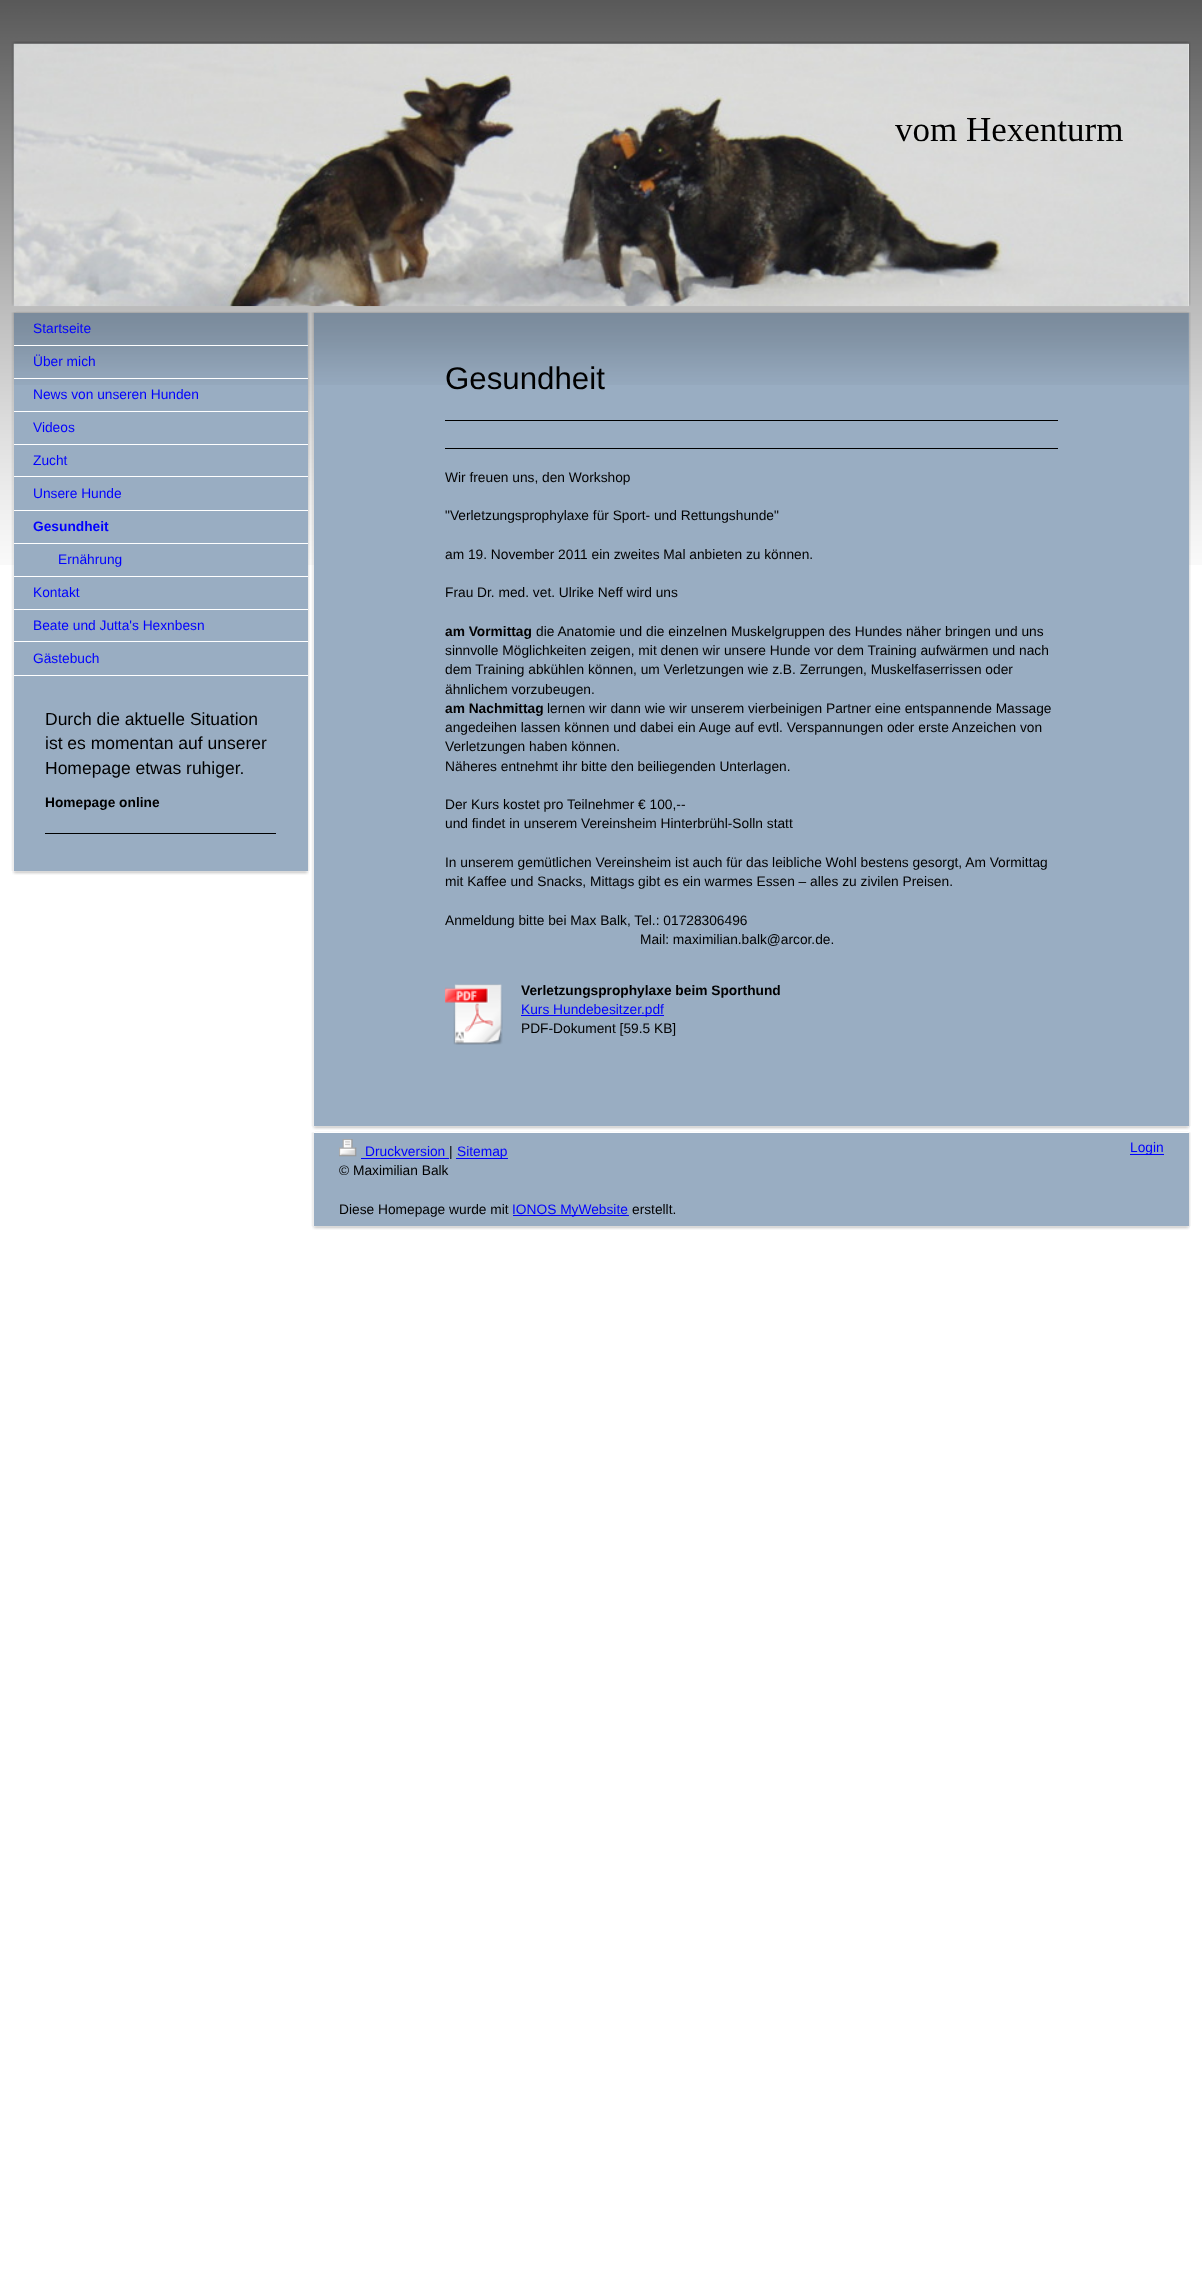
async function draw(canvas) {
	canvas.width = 1202;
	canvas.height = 2286;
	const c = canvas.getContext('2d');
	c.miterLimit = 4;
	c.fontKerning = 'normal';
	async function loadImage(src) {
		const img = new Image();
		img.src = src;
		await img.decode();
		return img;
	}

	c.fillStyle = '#fff';
	c.fillRect(0, 0, 1202, 2286);
	c.drawImage(await loadImage('img1.png'), 0, 0, 1202, 565);
	c.drawImage(await loadImage('img2.png'), 11, 41, 1180, 265);
	c.fillStyle = '#eee';
	c.fillRect(1188, 44, 1, 262);
	c.drawImage(await loadImage('img3.png'), 13, 43, 1176, 264);
	c.font = '35px Liberation Serif';
	c.fillStyle = '#000';
	c.fillText('vom Hexenturm', 895, 141);
	c.fillStyle = '#b9b9b9';
	c.fillRect(16, 311, 290, 1);
	c.drawImage(await loadImage('img4.png'), 12, 871, 297, 4);
	c.drawImage(await loadImage('img5.png'), 11, 312, 299, 559);
	c.fillStyle = '#99adc2';
	c.fillRect(14, 313, 294, 558);
	c.drawImage(await loadImage('img6.png'), 13, 312, 295, 73);
	c.fillStyle = '#fff';
	c.fillRect(14, 345, 294, 1);
	c.font = '13.75px Liberation Sans';
	c.fillStyle = '#00f';
	c.fillText('Startseite', 33, 333);
	c.fillStyle = '#fff';
	c.fillRect(14, 378, 294, 1);
	c.fillStyle = '#00f';
	c.fillText('Über mich', 33, 366);
	c.fillStyle = '#fff';
	c.fillRect(14, 411, 294, 1);
	c.fillStyle = '#00f';
	c.fillText('News von unseren Hunden', 33, 399);
	c.fillStyle = '#fff';
	c.fillRect(14, 444, 294, 1);
	c.fillStyle = '#00f';
	c.fillText('Videos', 33, 432);
	c.fillStyle = '#fff';
	c.fillRect(14, 476, 294, 1);
	c.fillStyle = '#00f';
	c.fillText('Zucht', 33, 465);
	c.fillStyle = '#fff';
	c.fillRect(14, 510, 294, 1);
	c.fillStyle = '#00f';
	c.fillText('Unsere Hunde', 33, 498);
	c.fillStyle = '#fff';
	c.fillRect(14, 543, 294, 1);
	c.font = 'bold 13.75px Liberation Sans';
	c.fillStyle = '#00f';
	c.fillText('Gesundheit', 33, 531);
	c.fillStyle = '#fff';
	c.fillRect(14, 576, 294, 1);
	c.font = '13.75px Liberation Sans';
	c.fillStyle = '#00f';
	c.fillText('Ernährung', 58, 564);
	c.fillStyle = '#fff';
	c.fillRect(14, 609, 294, 1);
	c.fillStyle = '#00f';
	c.fillText('Kontakt', 33, 597);
	c.fillStyle = '#fff';
	c.fillRect(14, 641, 294, 1);
	c.fillStyle = '#00f';
	c.fillText('Beate und Jutta\'s Hexnbesn', 33, 630);
	c.fillStyle = '#fff';
	c.fillRect(14, 675, 294, 1);
	c.fillStyle = '#00f';
	c.fillText('Gästebuch', 33, 663);
	c.font = '17.5px Liberation Sans';
	c.fillStyle = '#000';
	for (const [text, x, y] of [
		['Durch die aktuelle Situation', 45, 725],
		['ist es momentan auf unserer', 45, 749],
		['Homepage etwas ruhiger.', 45, 774],
	]) {
		c.fillText(text, x, y);
	}
	c.font = 'bold 13.75px Liberation Sans';
	c.fillText('Homepage online', 45, 807);
	c.fillRect(45, 833, 231, 1);
	c.fillStyle = '#b9b9b9';
	c.fillRect(316, 311, 871, 1);
	c.drawImage(await loadImage('img7.png'), 312, 1126, 878, 4);
	c.drawImage(await loadImage('img8.png'), 311, 312, 880, 815);
	c.fillStyle = '#99adc2';
	c.fillRect(314, 313, 875, 813);
	c.drawImage(await loadImage('img9.png'), 313, 312, 876, 73);
	c.font = '31.25px Liberation Sans';
	c.fillStyle = '#000';
	c.fillText('Gesundheit', 445, 389);
	c.fillRect(445, 420, 613, 1);
	c.fillRect(445, 448, 613, 1);
	c.font = '13.75px Liberation Sans';
	for (const [text, x, y] of [
		['Wir freuen uns, den Workshop', 445, 482],
		['"Verletzungsprophylaxe für Sport- und Rettungshunde"', 445, 520],
		['am 19. November 2011 ein zweites Mal anbieten zu können.', 445, 559],
		['Frau Dr. med. vet. Ulrike Neff wird uns', 445, 597],
	]) {
		c.fillText(text, x, y);
	}
	c.font = 'bold 13.75px Liberation Sans';
	c.fillText('am Vormittag', 445, 636);
	c.font = '13.75px Liberation Sans';
	for (const [text, x, y] of [
		['die Anatomie und die einzelnen Muskelgruppen des Hundes näher bringen und uns', 536, 636],
		['sinnvolle Möglichkeiten zeigen, mit denen wir unsere Hunde vor dem Training aufwärmen und nach', 445, 655],
		['dem Training abkühlen können, um Verletzungen wie z.B. Zerrungen, Muskelfaserrissen oder', 445, 674],
		['ähnlichem vorzubeugen.', 445, 694],
	]) {
		c.fillText(text, x, y);
	}
	c.font = 'bold 13.75px Liberation Sans';
	c.fillText('am Nachmittag', 445, 713);
	c.font = '13.75px Liberation Sans';
	for (const [text, x, y] of [
		['lernen wir dann wie wir unserem vierbeinigen Partner eine entspannende Massage', 547, 713],
		['angedeihen lassen können und dabei ein Auge auf evtl. Verspannungen oder erste Anzeichen von', 445, 732],
		['Verletzungen haben können.', 445, 751],
		['Näheres entnehmt ihr bitte den beiliegenden Unterlagen.', 445, 771],
		['Der Kurs kostet pro Teilnehmer € 100,--', 445, 809],
		['und findet in unserem Vereinsheim Hinterbrühl-Solln statt', 445, 828],
		['In unserem gemütlichen Vereinsheim ist auch für das leibliche Wohl bestens gesorgt, Am Vormittag', 445, 867],
		['mit Kaffee und Snacks, Mittags gibt es ein warmes Essen – alles zu zivilen Preisen.', 445, 886],
		['Anmeldung bitte bei Max Balk, Tel.: 01728306496', 445, 925],
		['Mail: maximilian.balk@arcor.de.', 640, 944],
	]) {
		c.fillText(text, x, y);
	}
	c.drawImage(await loadImage('img10.png'), 445, 984, 58, 61);
	c.font = 'bold 13.75px Liberation Sans';
	c.fillText('Verletzungsprophylaxe beim Sporthund', 521, 995);
	c.fillStyle = '#00f';
	c.fillRect(521, 1015, 143, 1);
	c.font = '13.75px Liberation Sans';
	c.fillText('Kurs Hundebesitzer.pdf', 521, 1014);
	c.fillStyle = '#000';
	c.fillText('PDF-Dokument [59.5 KB]', 521, 1033);
	c.fillStyle = '#fafafa';
	c.fillRect(315, 1131, 873, 1);
	c.drawImage(await loadImage('img7.png'), 312, 1226, 878, 4);
	c.drawImage(await loadImage('img11.png'), 311, 1132, 880, 95);
	c.fillStyle = '#99adc2';
	c.fillRect(314, 1133, 875, 93);
	c.drawImage(await loadImage('img12.png'), 339, 1139, 18, 18);
	c.fillStyle = '#00f';
	c.fillText('Druckversion', 365, 1156);
	c.fillRect(361, 1158, 88, 1);
	c.fillStyle = '#000';
	c.fillText('|', 449, 1156);
	c.fillStyle = '#00f';
	c.fillRect(456, 1158, 52, 1);
	c.fillText('Sitemap', 457, 1156);
	c.fillStyle = '#000';
	c.fillText('© Maximilian Balk', 339, 1175);
	c.fillText('Diese Homepage wurde mit', 339, 1214);
	c.fillStyle = '#00f';
	c.fillRect(513, 1215, 116, 1);
	c.fillText('IONOS MyWebsite', 512, 1214);
	c.fillStyle = '#000';
	c.fillText('erstellt.', 632, 1214);
	c.fillStyle = '#00f';
	c.fillRect(1130, 1154, 34, 1);
	c.fillText('Login', 1130, 1152);
}

draw(document.querySelector('canvas'));
